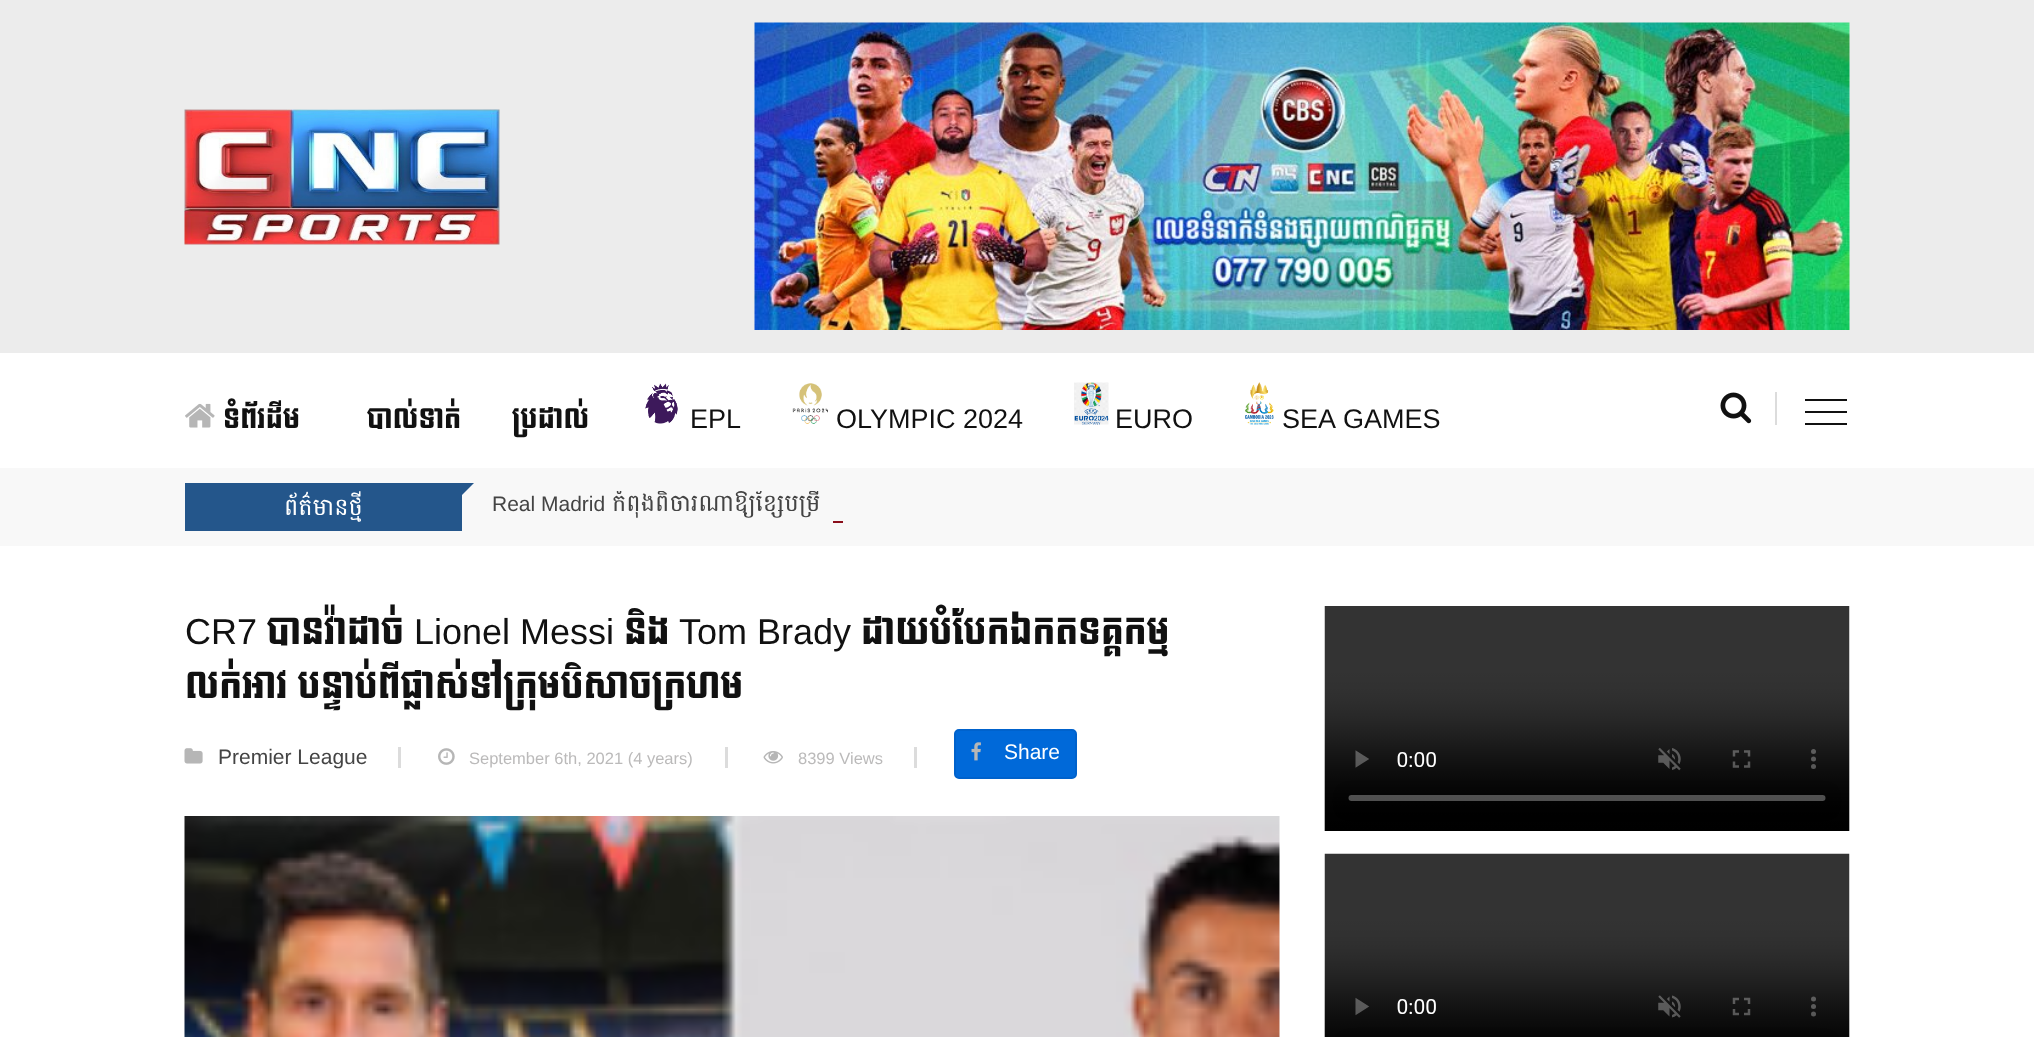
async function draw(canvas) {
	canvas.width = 2034;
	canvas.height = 1037;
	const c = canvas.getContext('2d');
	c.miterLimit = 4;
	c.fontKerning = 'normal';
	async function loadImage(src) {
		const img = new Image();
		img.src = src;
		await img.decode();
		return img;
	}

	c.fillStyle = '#ececec';
	c.fillRect(0, 0, 2034, 1037);
	c.drawImage(await loadImage('img1.png'), 184, 109, 316, 136);
	c.drawImage(await loadImage('img2.png'), 754, 22, 1096, 308);
	c.fillStyle = '#fff';
	c.fillRect(0, 353, 2034, 115);
	c.drawImage(await loadImage('img3.png'), 185, 403, 30, 25);
	c.font = '27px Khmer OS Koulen';
	c.fillStyle = '#111';
	for (const [text, x, y] of [
		['ទំព័រដើម', 223, 428],
		['បាល់ទាត់', 367, 428],
		['ប្រដាល់', 512, 428],
	]) {
		c.fillText(text, x, y);
	}
	c.drawImage(await loadImage('img4.png'), 645, 383, 33, 41);
	c.font = '27px Liberation Sans';
	c.fillText('EPL', 690, 428);
	c.drawImage(await loadImage('img5.png'), 792, 383, 36, 41);
	c.fillText('OLYMPIC 2024', 836, 428);
	c.drawImage(await loadImage('img6.png'), 1074, 382, 35, 43);
	c.fillText('EURO', 1115, 428);
	c.drawImage(await loadImage('img7.png'), 1245, 382, 29, 43);
	c.wordSpacing = '1px';
	c.fillText('SEA GAMES', 1282, 428);
	c.fillStyle = '#dcdcdc';
	c.fillRect(1775, 392, 2, 33);
	c.drawImage(await loadImage('img8.png'), 1720, 392, 32, 32);
	for (const [x, y, w, h, color] of [
		[1805, 399, 42, 2, '#111'],
		[1805, 411, 42, 2, '#111'],
		[1805, 423, 42, 2, '#111'],
		[0, 468, 2034, 78, '#f8f8f8'],
		[185, 483, 277, 48, '#24568b'],
	]) {
		c.fillStyle = color;
		c.fillRect(x, y, w, h);
	}
	c.beginPath();
	c.moveTo(462, 483);
	c.lineTo(474, 483);
	c.lineTo(462, 495);
	c.closePath();
	c.fill();
	c.wordSpacing = '0px';
	c.font = '21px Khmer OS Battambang';
	c.fillStyle = '#fff';
	c.fillText('ព័ត៌មានថ្មី', 284, 515);
	c.font = '21px Liberation Sans';
	c.fillStyle = '#444';
	c.fillText('Real', 492, 511);
	c.fillText('Madrid', 541, 511);
	c.save();
	c.beginPath();
	c.rect(492, 491, 1085, 31);
	c.clip();
	c.font = '21px Khmer OS Battambang';
	c.fillText('កំពុងពិចារណាឱ្យខ្សែបម្រើ', 612, 511);
	c.restore();
	c.fillStyle = '#8a0e1a';
	c.fillRect(833, 521, 10, 2);
	c.fillStyle = '#fff';
	c.fillRect(0, 546, 2034, 491);
	c.font = '36px Liberation Sans';
	c.fillStyle = '#111';
	c.fillText('CR7', 185, 644);
	c.font = '36px Khmer OS Koulen';
	c.fillText('បានវ៉ាដាច់', 267, 644);
	c.font = '36px Liberation Sans';
	c.fillText('Lionel Messi', 414, 644);
	c.font = '36px Khmer OS Koulen';
	c.fillText('និង', 624, 644);
	c.font = '36px Liberation Sans';
	c.fillText('Tom Brady', 679, 644);
	c.font = '36px Khmer OS Koulen';
	c.fillText('ដោយបំបែកឯកតទគ្គកម្ម', 861, 644);
	c.fillText('លក់អាវ បន្ទាប់ពីផ្លាស់ទៅក្រុមបិសាចក្រហម', 185, 698);
	c.fillStyle = '#dcdcdc';
	c.fillRect(398, 747, 3, 21);
	c.drawImage(await loadImage('img9.png'), 184, 748, 19, 16);
	c.font = '21px Liberation Sans';
	c.fillStyle = '#444';
	c.fillText('Premier League', 218, 764);
	c.fillStyle = '#dcdcdc';
	c.fillRect(725, 747, 3, 21);
	c.drawImage(await loadImage('img10.png'), 438, 748, 17, 17);
	c.font = '16.5px Liberation Sans';
	c.fillStyle = '#bbbaba';
	c.fillText('September 6th, 2021 (4 years)', 469, 764);
	c.fillStyle = '#dcdcdc';
	c.fillRect(914, 747, 3, 21);
	c.drawImage(await loadImage('img11.png'), 763, 751, 20, 13);
	c.fillStyle = '#bbbaba';
	c.fillText('8399 Views', 798, 764);
	c.fillStyle = '#0069d9';
	c.beginPath();
	c.roundRect(955, 730, 121, 48, 4);
	c.fill();
	c.strokeStyle = '#0062cc';
	c.lineWidth = 2;
	c.stroke();
	c.drawImage(await loadImage('img12.png'), 971, 742, 10, 19);
	c.font = '21px Liberation Sans';
	c.fillStyle = '#fff';
	c.fillText('Share', 1004, 759);
	c.drawImage(await loadImage('img13.png'), 184, 816, 1096, 221);
	c.drawImage(await loadImage('img14.png'), 1324, 606, 526, 225);
	c.drawImage(await loadImage('img15.png'), 1324, 853, 526, 184);
}

draw(document.querySelector('canvas'));
